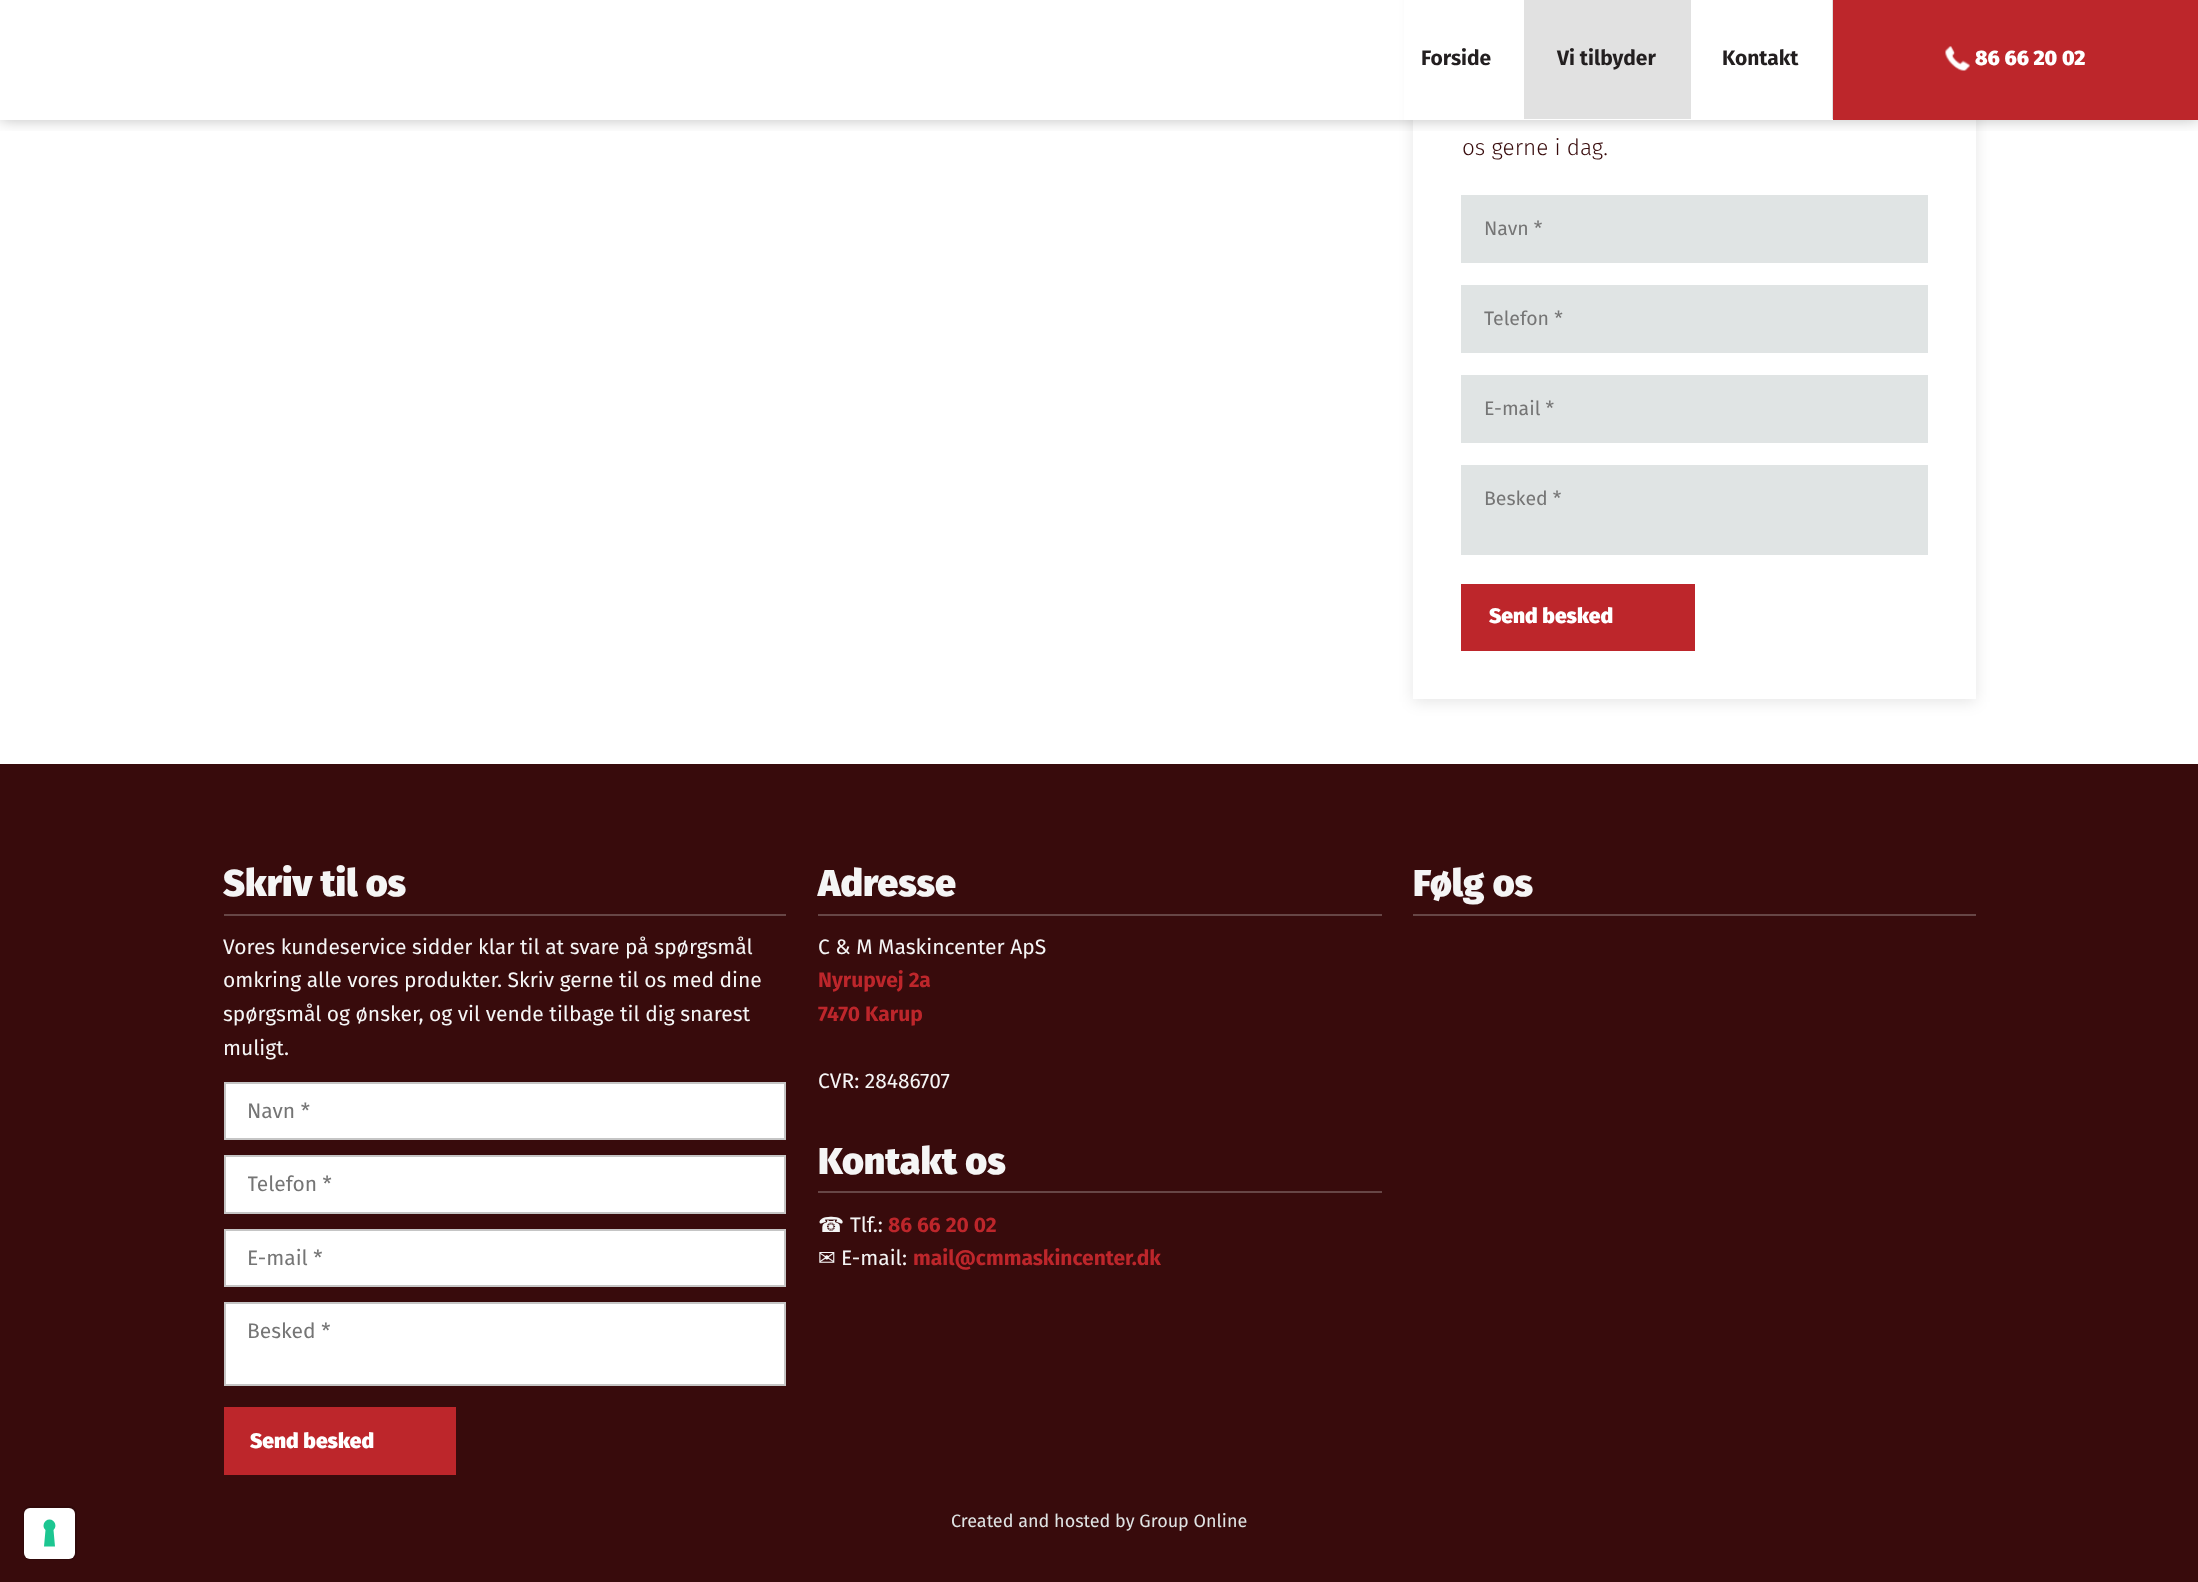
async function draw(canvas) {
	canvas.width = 2198;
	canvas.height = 1582;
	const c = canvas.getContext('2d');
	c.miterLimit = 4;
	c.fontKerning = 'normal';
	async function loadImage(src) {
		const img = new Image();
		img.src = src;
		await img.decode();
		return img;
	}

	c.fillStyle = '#fff';
	c.fillRect(0, 0, 2198, 1582);
	c.fillStyle = '#380b0c';
	c.fillRect(0, 764, 2198, 818);
	c.beginPath();
	c.roundRect(24, 1507, 52, 52, 7);
	c.strokeStyle = '#30090a';
	c.lineWidth = 2;
	c.stroke();
	c.fillStyle = '#fff';
	c.beginPath();
	c.roundRect(24, 1508, 51, 51, 6);
	c.fill();
	c.fillStyle = '#1cc691';
	c.beginPath();
	c.moveTo(49.5, 1519.5);
	c.bezierCurveTo(55, 1519.5, 57.5, 1526.5, 53.5, 1530);
	c.lineTo(55, 1546.5);
	c.lineTo(44, 1546.5);
	c.lineTo(45.5, 1530);
	c.bezierCurveTo(41.5, 1526.5, 44, 1519.5, 49.5, 1519.5);
	c.closePath();
	c.fill('evenodd');
	c.fillStyle = '#0000001a';
	c.filter = 'blur(7.5px)';
	c.beginPath();
	c.rect(1413, -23, 563, 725);
	c.fill();
	c.filter = 'none';
	c.fillStyle = '#fff';
	c.fillRect(1413, 0, 563, 699);
	c.save();
	c.beginPath();
	c.rect(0, 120, 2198, 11);
	c.clip();
	c.fillStyle = '#00000040';
	c.filter = 'blur(7.5px)';
	c.beginPath();
	c.rect(0, 0, 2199, 120);
	c.fill();
	c.filter = 'none';
	c.restore();
	c.fillStyle = '#fffffff2';
	c.fillRect(1404, 0, 9, 120);
	c.fillStyle = '#e1e1e1';
	c.fillRect(1524, 0, 167, 119);
	c.font = 'bold 21px Fira Sans';
	c.fillStyle = '#231f20';
	c.fillText('Forside', 1421, 65);
	c.fillText('Vi tilbyder', 1557, 65);
	c.fillStyle = '#e1e1e1';
	c.fillRect(1832, 0, 1, 119);
	c.fillStyle = '#231f20';
	c.fillText('Kontakt', 1722, 65);
	c.fillStyle = '#bd262b';
	c.fillRect(1833, 0, 365, 120);
	c.drawImage(await loadImage('img1.png'), 1945, 46, 25, 25);
	c.font = '900 21px Fira Sans';
	c.fillStyle = '#fff';
	c.fillText('86 66 20 02', 1975, 65);
	c.font = '300 22.5px Fira Sans';
	c.fillStyle = '#380b0c';
	c.fillText('os gerne i dag.', 1462, 155);
	c.fillStyle = '#e0e4e4';
	c.fillRect(1461, 195, 467, 68);
	c.font = '19.5px Fira Sans';
	c.fillStyle = '#757575';
	c.fillText('Navn *', 1484, 235);
	c.fillStyle = '#e0e4e4';
	c.fillRect(1461, 285, 467, 68);
	c.fillStyle = '#757575';
	c.fillText('Telefon *', 1484, 325);
	c.fillStyle = '#e0e4e4';
	c.fillRect(1461, 375, 467, 68);
	c.fillStyle = '#757575';
	c.fillText('E-mail *', 1484, 415);
	c.fillStyle = '#e0e4e4';
	c.fillRect(1461, 465, 467, 90);
	c.fillStyle = '#757575';
	c.fillText('Besked *', 1484, 505);
	c.fillStyle = '#bd262b';
	c.fillRect(1461, 584, 234, 67);
	c.font = '900 21px Fira Sans';
	c.fillStyle = '#fff';
	c.fillText('Send besked', 1489, 623);
	c.fillStyle = '#674646';
	c.fillRect(224, 914, 562, 2);
	c.font = '900 37.5px Fira Sans';
	c.fillStyle = '#f5f5f5';
	c.fillText('Skriv til os', 223, 896);
	c.font = '21px Fira Sans';
	for (const [text, x, y] of [
		['Vores kundeservice sidder klar til at svare på spørgsmål', 223, 954],
		['omkring alle vores produkter. Skriv gerne til os med dine', 223, 987],
		['spørgsmål og ønsker, og vil vende tilbage til dig snarest', 223, 1021],
		['muligt.', 223, 1055],
	]) {
		c.fillText(text, x, y);
	}
	c.fillStyle = '#fff';
	c.beginPath();
	c.rect(225, 1083, 560, 56);
	c.fill();
	c.strokeStyle = '#c5c5c5';
	c.stroke();
	c.fillStyle = '#757575';
	c.fillText('Navn *', 247, 1118);
	c.fillStyle = '#fff';
	c.beginPath();
	c.rect(225, 1156, 560, 57);
	c.fill();
	c.stroke();
	c.save();
	c.beginPath();
	c.rect(248, 1172, 514, 25);
	c.clip();
	c.fillStyle = '#757575';
	c.fillText('Telefon *', 247, 1191);
	c.restore();
	c.beginPath();
	c.rect(225, 1230, 560, 56);
	c.fill();
	c.stroke();
	c.fillStyle = '#757575';
	c.fillText('E-mail *', 247, 1265);
	c.fillStyle = '#fff';
	c.beginPath();
	c.rect(225, 1303, 560, 82);
	c.fill();
	c.stroke();
	c.fillStyle = '#757575';
	c.fillText('Besked *', 247, 1338);
	c.fillStyle = '#bd262b';
	c.fillRect(224, 1407, 232, 68);
	c.font = '900 21px Fira Sans';
	c.fillStyle = '#fff';
	c.fillText('Send besked', 250, 1448);
	c.fillStyle = '#674646';
	c.fillRect(818, 914, 564, 2);
	c.font = '900 37.5px Fira Sans';
	c.fillStyle = '#f5f5f5';
	c.fillText('Adresse', 818, 896);
	c.font = '21px Fira Sans';
	c.fillText('C & M Maskincenter ApS', 818, 954);
	c.font = 'bold 21px Fira Sans';
	c.fillStyle = '#bd262b';
	c.fillText('Nyrupvej 2a', 818, 987);
	c.fillText('7470 Karup', 818, 1021);
	c.font = '21px Fira Sans';
	c.fillStyle = '#f5f5f5';
	c.fillText('CVR: 28486707', 818, 1088);
	c.fillStyle = '#674646';
	c.fillRect(818, 1191, 564, 2);
	c.font = '900 37.5px Fira Sans';
	c.fillStyle = '#f5f5f5';
	c.fillText('Kontakt os', 818, 1174);
	c.font = '21px DejaVu Sans';
	c.fillText('☎', 818, 1232);
	c.font = '21px Fira Sans';
	c.fillText('Tlf.:', 850, 1232);
	c.font = 'bold 21px Fira Sans';
	c.fillStyle = '#bd262b';
	c.fillText('86 66 20 02', 888, 1232);
	c.font = '21px DejaVu Sans';
	c.fillStyle = '#f5f5f5';
	c.fillText('✉', 818, 1265);
	c.font = '21px Fira Sans';
	c.fillText('E-mail:', 841, 1265);
	c.font = 'bold 21px Fira Sans';
	c.fillStyle = '#bd262b';
	c.fillText('mail@cmmaskincenter.dk', 913, 1265);
	c.fillStyle = '#674646';
	c.fillRect(1413, 914, 563, 2);
	c.font = '900 37.5px Fira Sans';
	c.fillStyle = '#f5f5f5';
	c.fillText('Følg os', 1413, 896);
	c.font = '18px Fira Sans';
	c.fillStyle = '#e0e4e4';
	c.fillText('Created and hosted by Group Online', 951, 1527);
}

draw(document.querySelector('canvas'));
